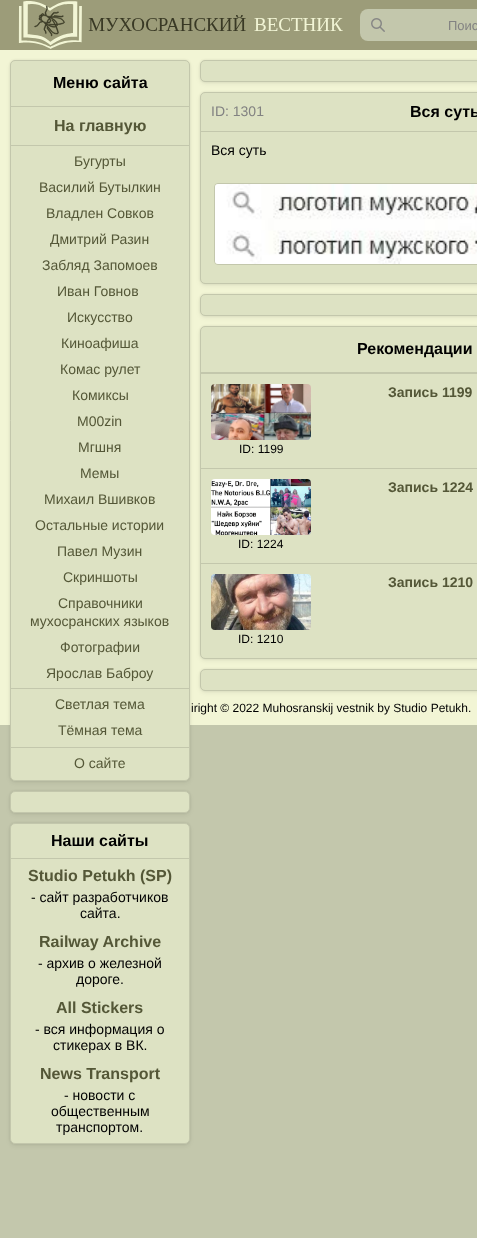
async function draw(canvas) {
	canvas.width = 477;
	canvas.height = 1238;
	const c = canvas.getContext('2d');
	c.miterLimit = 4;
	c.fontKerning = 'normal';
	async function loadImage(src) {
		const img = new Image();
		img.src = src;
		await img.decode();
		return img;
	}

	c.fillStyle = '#c3c7ac';
	c.fillRect(0, 0, 477, 1238);
	c.fillStyle = '#9c9c79';
	c.fillRect(0, 0, 477, 50);
	c.drawImage(await loadImage('img1.png'), 18, 1, 325, 48);
	c.fillStyle = '#c3c7ac';
	c.beginPath();
	c.roundRect(360, 9, 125, 32, 8);
	c.fill();
	c.drawImage(await loadImage('img2.png'), 371, 18, 14, 14);
	c.font = '13px Liberation Sans';
	c.fillStyle = '#828282';
	c.fillText('Поис', 448, 30);
	c.fillStyle = '#f2f5d5';
	c.fillRect(0, 50, 477, 675);
	c.fillStyle = '#0000000f';
	c.filter = 'blur(2px)';
	c.beginPath();
	c.roundRect(10, 62, 180, 721, 5);
	c.fill();
	c.filter = 'none';
	c.fillStyle = '#00000014';
	c.filter = 'blur(1px)';
	c.beginPath();
	c.roundRect(10, 60, 180, 721, 5);
	c.fill();
	c.filter = 'none';
	c.fillStyle = '#dde2c3';
	c.beginPath();
	c.roundRect(10.5, 60.5, 179, 720, 4.5);
	c.fill();
	c.strokeStyle = '#c3c7ac';
	c.stroke();
	c.fillStyle = '#c3c7ac';
	c.fillRect(11, 106, 178, 1);
	c.font = 'bold 16px Liberation Sans';
	c.fillStyle = '#000';
	c.fillText('Меню сайта', 53, 88);
	c.fillStyle = '#c3c7ac';
	c.fillRect(11, 145, 178, 1);
	c.fillStyle = '#545737';
	c.fillText('На главную', 54, 131);
	c.font = '14px Liberation Sans';
	for (const [text, x, y] of [
		['Бугурты', 74, 166],
		['Василий Бутылкин', 39, 192],
		['Владлен Совков', 46, 218],
		['Дмитрий Разин', 50, 244],
		['Забляд Запомоев', 42, 270],
		['Иван Говнов', 57, 296],
		['Искусство', 67, 322],
		['Киноафиша', 61, 348],
		['Комас рулет', 60, 374],
		['Комиксы', 72, 400],
		['M00zin', 77, 426],
		['Мгшня', 78, 452],
		['Мемы', 80, 478],
		['Михаил Вшивков', 44, 504],
		['Остальные истории', 35, 530],
		['Павел Музин', 57, 556],
		['Скриншоты', 63, 582],
		['Справочники', 58, 608],
		['мухосранских языков', 30, 626],
		['Фотографии', 60, 652],
		['Ярослав Баброу', 46, 678],
	]) {
		c.fillText(text, x, y);
	}
	c.fillStyle = '#c3c7ac';
	c.fillRect(11, 688, 178, 1);
	c.fillStyle = '#545737';
	c.fillText('Светлая тема', 55, 709);
	c.fillText('Тёмная тема', 58, 735);
	c.fillStyle = '#c3c7ac';
	c.fillRect(11, 747, 178, 1);
	c.fillStyle = '#545737';
	c.fillText('О сайте', 74, 768);
	c.fillStyle = '#0000000f';
	c.filter = 'blur(2px)';
	c.beginPath();
	c.roundRect(10, 793, 180, 22, 5);
	c.fill();
	c.filter = 'none';
	c.fillStyle = '#00000014';
	c.filter = 'blur(1px)';
	c.beginPath();
	c.roundRect(10, 791, 180, 22, 5);
	c.fill();
	c.filter = 'none';
	c.fillStyle = '#dde2c3';
	c.beginPath();
	c.roundRect(10.5, 791.5, 179, 21, 4.5);
	c.fill();
	c.stroke();
	c.fillStyle = '#0000000f';
	c.filter = 'blur(2px)';
	c.beginPath();
	c.roundRect(10, 825, 180, 321, 5);
	c.fill();
	c.filter = 'none';
	c.fillStyle = '#00000014';
	c.filter = 'blur(1px)';
	c.beginPath();
	c.roundRect(10, 823, 180, 321, 5);
	c.fill();
	c.filter = 'none';
	c.fillStyle = '#dde2c3';
	c.beginPath();
	c.roundRect(10.5, 823.5, 179, 320, 4.5);
	c.fill();
	c.stroke();
	c.fillStyle = '#c3c7ac';
	c.fillRect(11, 858, 178, 1);
	c.font = 'bold 16px Liberation Sans';
	c.fillStyle = '#000';
	c.fillText('Наши сайты', 51, 846);
	c.fillStyle = '#545737';
	c.fillText('Studio Petukh (SP)', 28, 881);
	c.font = '14px Liberation Sans';
	c.fillStyle = '#000';
	c.fillText('- сайт разработчиков', 31, 902);
	c.fillText('сайта.', 80, 918);
	c.font = 'bold 16px Liberation Sans';
	c.fillStyle = '#545737';
	c.fillText('Railway Archive', 39, 947);
	c.font = '14px Liberation Sans';
	c.fillStyle = '#000';
	c.fillText('- архив о железной', 38, 968);
	c.fillText('дороге.', 76, 984);
	c.font = 'bold 16px Liberation Sans';
	c.fillStyle = '#545737';
	c.fillText('All Stickers', 56, 1013);
	c.font = '14px Liberation Sans';
	c.fillStyle = '#000';
	c.fillText('- вся информация о', 35, 1034);
	c.fillText('стикерах в ВК.', 53, 1050);
	c.font = 'bold 16px Liberation Sans';
	c.fillStyle = '#545737';
	c.fillText('News Transport', 40, 1079);
	c.font = '14px Liberation Sans';
	c.fillStyle = '#000';
	for (const [text, x, y] of [
		['- новости с', 64, 1100],
		['общественным', 51, 1116],
		['транспортом.', 56, 1132],
	]) {
		c.fillText(text, x, y);
	}
	c.fillStyle = '#0000000f';
	c.filter = 'blur(2px)';
	c.beginPath();
	c.roundRect(200, 62, 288, 22, 5);
	c.fill();
	c.filter = 'none';
	c.fillStyle = '#00000014';
	c.filter = 'blur(1px)';
	c.beginPath();
	c.roundRect(200, 60, 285, 22, 5);
	c.fill();
	c.filter = 'none';
	c.fillStyle = '#dde2c3';
	c.beginPath();
	c.roundRect(201, 61, 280, 20, 4);
	c.fill();
	c.beginPath();
	c.roundRect(200.5, 60.5, 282, 21, 4.5);
	c.stroke();
	c.fillStyle = '#0000000f';
	c.filter = 'blur(2px)';
	c.beginPath();
	c.roundRect(200, 94, 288, 192, 5);
	c.fill();
	c.filter = 'none';
	c.fillStyle = '#00000014';
	c.filter = 'blur(1px)';
	c.beginPath();
	c.roundRect(200, 92, 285, 192, 5);
	c.fill();
	c.filter = 'none';
	c.fillStyle = '#dde2c3';
	c.beginPath();
	c.roundRect(201, 93, 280, 190, 4);
	c.fill();
	c.beginPath();
	c.roundRect(200.5, 92.5, 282, 191, 4.5);
	c.stroke();
	c.fillStyle = '#c3c7ac';
	c.fillRect(201, 131, 276, 1);
	c.fillStyle = '#828282';
	c.fillText('ID: 1301', 211, 116);
	c.font = 'bold 16px Liberation Sans';
	c.fillStyle = '#000';
	c.fillText('Вся суть', 410, 117);
	c.font = '14px Liberation Sans';
	c.fillText('Вся суть', 211, 155);
	c.beginPath();
	c.roundRect(214.5, 183.5, 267, 81, 3.5);
	c.stroke();
	c.drawImage(await loadImage('img3.png'), 215, 184, 262, 80);
	c.fillStyle = '#0000000f';
	c.filter = 'blur(2px)';
	c.beginPath();
	c.roundRect(200, 296, 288, 22, 5);
	c.fill();
	c.filter = 'none';
	c.fillStyle = '#00000014';
	c.filter = 'blur(1px)';
	c.beginPath();
	c.roundRect(200, 294, 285, 22, 5);
	c.fill();
	c.filter = 'none';
	c.fillStyle = '#dde2c3';
	c.beginPath();
	c.roundRect(201, 295, 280, 20, 4);
	c.fill();
	c.beginPath();
	c.roundRect(200.5, 294.5, 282, 21, 4.5);
	c.stroke();
	c.fillStyle = '#0000000f';
	c.filter = 'blur(2px)';
	c.beginPath();
	c.roundRect(200, 328, 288, 333, 5);
	c.fill();
	c.filter = 'none';
	c.fillStyle = '#00000014';
	c.filter = 'blur(1px)';
	c.beginPath();
	c.roundRect(200, 326, 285, 333, 5);
	c.fill();
	c.filter = 'none';
	c.fillStyle = '#dde2c3';
	c.beginPath();
	c.roundRect(201, 327, 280, 331, 4);
	c.fill();
	c.beginPath();
	c.roundRect(200.5, 326.5, 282, 332, 4.5);
	c.stroke();
	c.fillStyle = '#c3c7ac';
	c.fillRect(201, 372, 276, 2);
	c.font = 'bold 16px Liberation Sans';
	c.fillStyle = '#000';
	c.fillText('Рекомендации', 357, 354);
	c.font = 'bold 14px Liberation Sans';
	c.fillStyle = '#545737';
	c.fillText('Запись 1199', 388, 397);
	c.drawImage(await loadImage('img4.png'), 211, 384, 100, 56);
	c.font = '12px Liberation Sans';
	c.fillStyle = '#000';
	c.fillText('ID: 1199', 239, 453);
	c.fillStyle = '#c3c7ac';
	c.fillRect(201, 468, 276, 1);
	c.font = 'bold 14px Liberation Sans';
	c.fillStyle = '#545737';
	c.fillText('Запись 1224', 388, 492);
	c.drawImage(await loadImage('img5.png'), 211, 479, 100, 56);
	c.font = '12px Liberation Sans';
	c.fillStyle = '#000';
	c.fillText('ID: 1224', 238, 548);
	c.fillStyle = '#c3c7ac';
	c.fillRect(201, 563, 276, 1);
	c.font = 'bold 14px Liberation Sans';
	c.fillStyle = '#545737';
	c.fillText('Запись 1210', 388, 587);
	c.drawImage(await loadImage('img6.png'), 211, 574, 100, 56);
	c.font = '12px Liberation Sans';
	c.fillStyle = '#000';
	c.fillText('ID: 1210', 238, 643);
	c.fillStyle = '#0000000f';
	c.filter = 'blur(2px)';
	c.beginPath();
	c.roundRect(200, 671, 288, 22, 5);
	c.fill();
	c.filter = 'none';
	c.fillStyle = '#00000014';
	c.filter = 'blur(1px)';
	c.beginPath();
	c.roundRect(200, 669, 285, 22, 5);
	c.fill();
	c.filter = 'none';
	c.fillStyle = '#dde2c3';
	c.beginPath();
	c.roundRect(201, 670, 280, 20, 4);
	c.fill();
	c.beginPath();
	c.roundRect(200.5, 669.5, 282, 21, 4.5);
	c.stroke();
	c.fillStyle = '#000';
	c.fillText('iright © 2022 Muhosranskij vestnik by Studio Petukh.', 191, 712);
}

draw(document.querySelector('canvas'));
